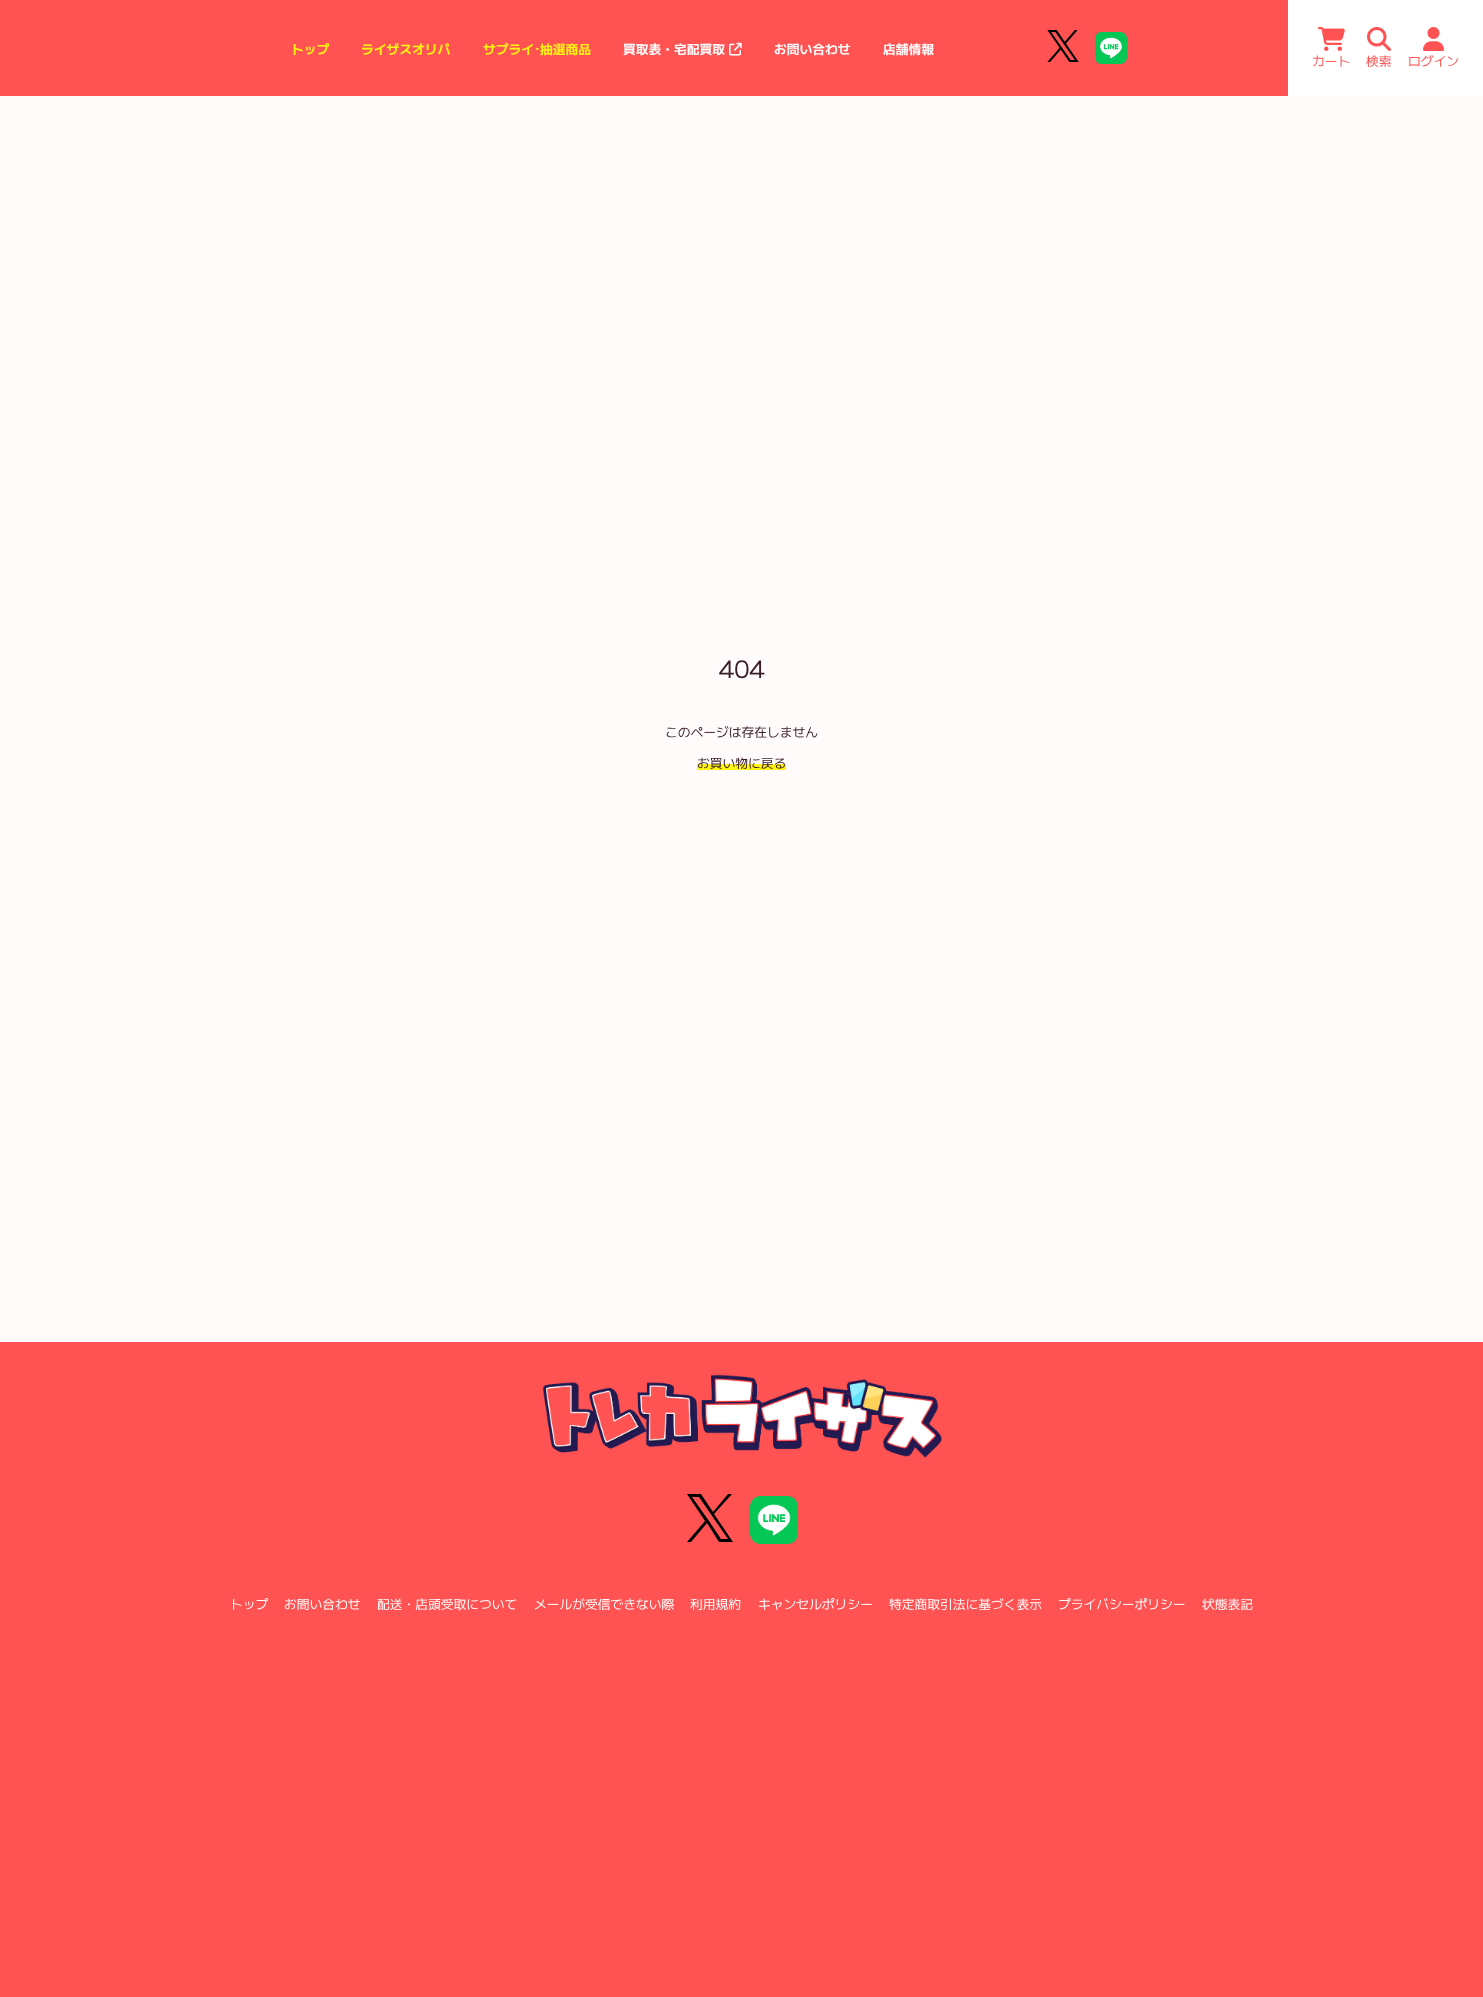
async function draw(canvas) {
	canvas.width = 1483;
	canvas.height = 1997;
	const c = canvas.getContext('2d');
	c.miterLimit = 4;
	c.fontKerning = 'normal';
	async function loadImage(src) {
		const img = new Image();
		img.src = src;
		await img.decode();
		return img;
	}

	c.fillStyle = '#fffbfb';
	c.fillRect(0, 0, 1483, 1997);
	c.fillStyle = '#ff5353';
	c.fillRect(0, 0, 1288, 96);
	c.font = 'bold 12.75px "M PLUS 2"';
	c.fillStyle = '#fff511';
	for (const [text, x, y] of [
		['トップ', 291, 54],
		['ライザスオリパ', 361, 54],
		['サプライ', 483, 54],
	]) {
		c.fillText(text, x, y);
	}
	c.font = 'bold 12.75px IPAPGothic';
	c.fillText('･', 534, 54);
	c.font = 'bold 12.75px "M PLUS 2"';
	c.fillText('抽選商品', 540, 54);
	c.fillStyle = '#fffbfb';
	c.fillText('買取表・宅配買取', 623, 54);
	c.drawImage(await loadImage('img1.png'), 729, 42, 13, 14);
	c.fillText('お問い合わせ', 774, 54);
	c.fillText('店舗情報', 883, 54);
	c.drawImage(await loadImage('img2.png'), 1047, 30, 32, 32);
	c.drawImage(await loadImage('img3.png'), 1095, 32, 32, 32);
	c.fillStyle = '#fff';
	c.fillRect(1288, 0, 195, 96);
	c.drawImage(await loadImage('img4.png'), 1318, 27, 27, 24);
	c.font = '12.75px "M PLUS 2"';
	c.fillStyle = '#ff5353';
	c.fillText('カート', 1312, 66);
	c.drawImage(await loadImage('img5.png'), 1367, 27, 24, 24);
	c.fillText('検索', 1366, 66);
	c.drawImage(await loadImage('img6.png'), 1423, 27, 21, 24);
	c.fillText('ログイン', 1408, 66);
	c.font = '24px "M PLUS 2"';
	c.fillStyle = '#381d2a';
	c.fillText('404', 719, 678);
	c.font = '12.75px "M PLUS 2"';
	c.fillText('このページは存在しません', 665, 737);
	c.fillStyle = '#fff511';
	c.fillRect(697, 764, 89, 6);
	c.fillStyle = '#381d2a';
	c.fillText('お買い物に戻る', 697, 768);
	c.fillStyle = '#ff5353';
	c.beginPath();
	c.moveTo(-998, 1342);
	c.lineTo(-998, 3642);
	c.lineTo(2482, 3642);
	c.lineTo(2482, 1342);
	c.lineTo(1483, 1342);
	c.lineTo(1483, 1645);
	c.lineTo(0, 1645);
	c.lineTo(0, 1342);
	c.closePath();
	c.fill();
	c.fillRect(0, 1342, 1483, 303);
	c.drawImage(await loadImage('img7.png'), 542, 1374, 400, 84);
	c.fillStyle = '#000';
	c.beginPath();
	c.moveTo(714, 1514);
	c.lineTo(732, 1494);
	c.lineTo(728, 1494);
	c.lineTo(713, 1512);
	c.lineTo(701, 1494);
	c.lineTo(687, 1494);
	c.lineTo(705, 1521);
	c.lineTo(687, 1542);
	c.lineTo(691, 1542);
	c.lineTo(707, 1523);
	c.lineTo(719, 1542);
	c.lineTo(733, 1542);
	c.closePath();
	c.moveTo(709, 1521);
	c.lineTo(692, 1497);
	c.lineTo(699, 1497);
	c.lineTo(728, 1539);
	c.lineTo(721, 1539);
	c.closePath();
	c.fill();
	c.drawImage(await loadImage('img8.png'), 750, 1496, 48, 48);
	c.fillStyle = '#fffbfb';
	for (const [text, x, y] of [
		['トップ', 230, 1609],
		['お問い合わせ', 284, 1609],
		['配送・店頭受取について', 377, 1609],
		['メールが受信できない際', 534, 1609],
		['利用規約', 690, 1609],
		['キャンセルポリシー', 758, 1609],
		['特定商取引法に基づく表示', 889, 1609],
		['プライバシーポリシー', 1058, 1609],
		['状態表記', 1202, 1609],
	]) {
		c.fillText(text, x, y);
	}
}

draw(document.querySelector('canvas'));
